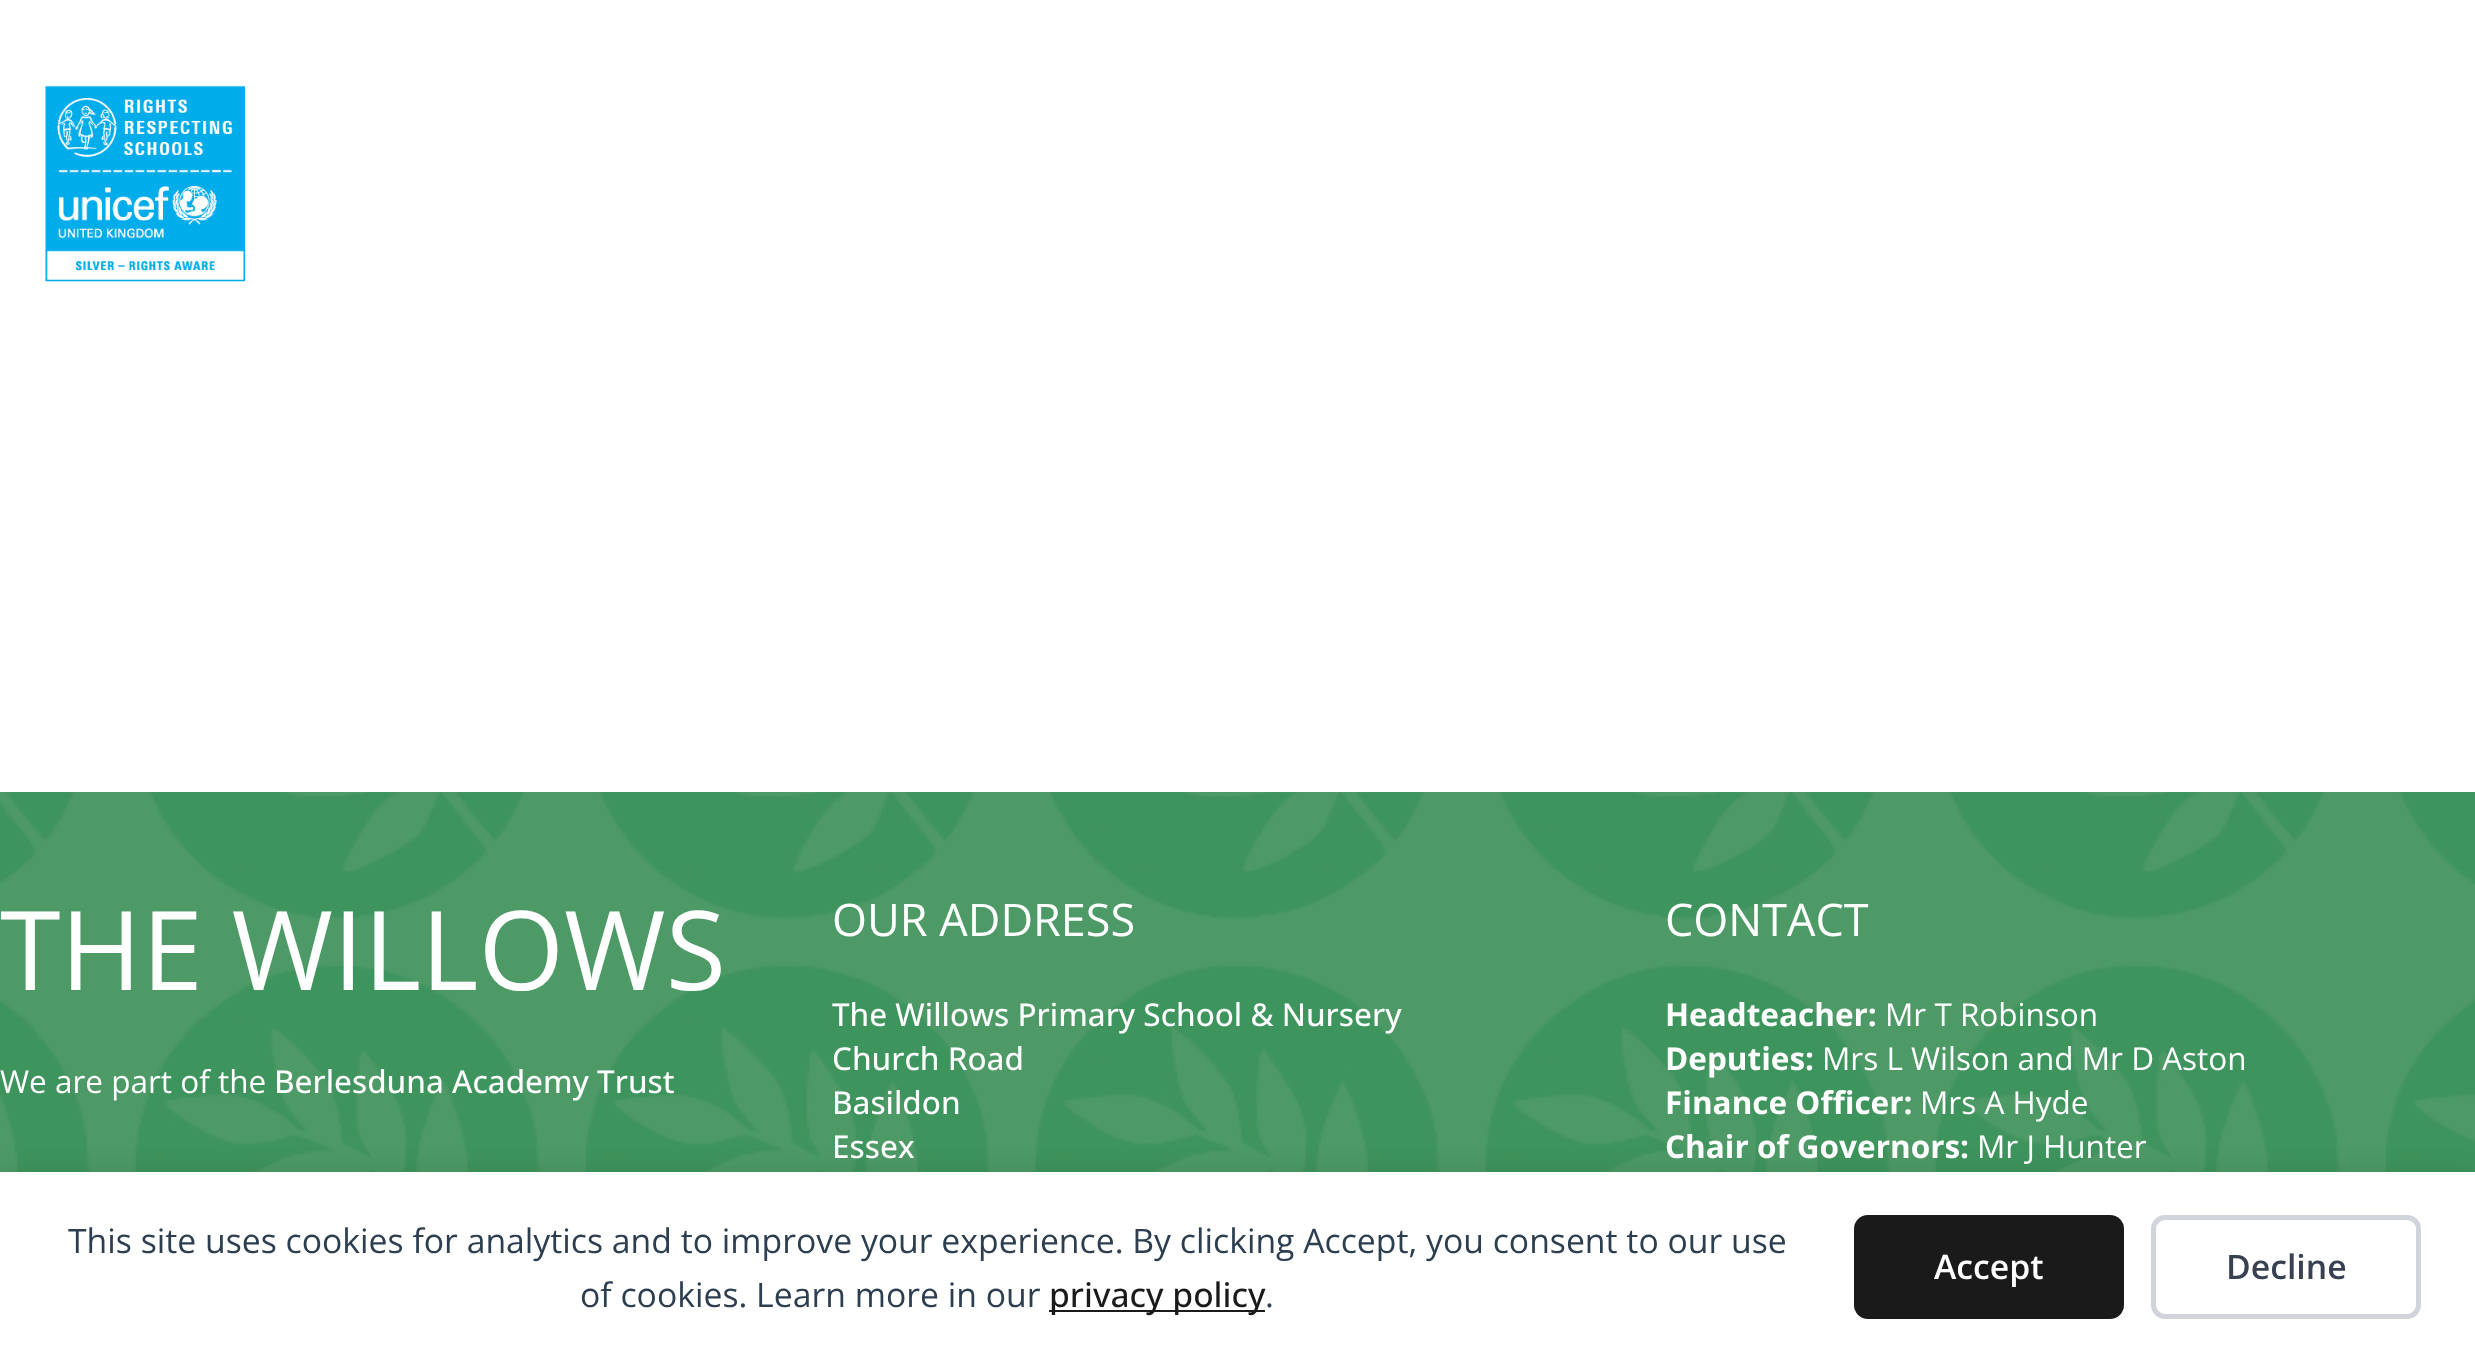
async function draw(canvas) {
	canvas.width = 2475;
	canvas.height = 1361;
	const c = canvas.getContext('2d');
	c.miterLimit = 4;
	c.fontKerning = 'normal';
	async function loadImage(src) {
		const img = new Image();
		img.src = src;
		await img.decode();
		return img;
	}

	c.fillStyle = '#fff';
	c.fillRect(0, 0, 2475, 1361);
	c.fillStyle = '#4d9a67';
	c.fillRect(0, 792, 2475, 380);
	c.drawImage(await loadImage('img1.png'), 45, 85, 201, 197);
	c.drawImage(await loadImage('img2.png'), 0, 792, 2475, 380);
	c.font = '110px Open Sans';
	c.fillStyle = '#fff';
	c.fillText('THE WILLOWS', 0, 990);
	c.font = '31.5px Open Sans';
	c.fillText('We are part of the', 0, 1093);
	c.font = '500 31.5px Open Sans';
	c.fillText('Berlesduna Academy Trust', 274, 1093);
	c.font = '45px Open Sans';
	c.fillText('OUR ADDRESS', 832, 936);
	c.font = '500 31.5px Open Sans';
	for (const [text, x, y] of [
		['The Willows Primary School & Nursery', 832, 1026],
		['Church Road', 832, 1070],
		['Basildon', 832, 1114],
		['Essex', 832, 1158],
	]) {
		c.fillText(text, x, y);
	}
	c.font = '45px Open Sans';
	c.fillText('CONTACT', 1665, 936);
	c.font = 'bold 31.5px Open Sans';
	c.fillText('Headteacher:', 1665, 1026);
	c.font = '31.5px Open Sans';
	c.fillText('Mr T Robinson', 1885, 1026);
	c.font = 'bold 31.5px Open Sans';
	c.fillText('Deputies:', 1665, 1070);
	c.font = '31.5px Open Sans';
	c.fillText('Mrs L Wilson and Mr D Aston', 1822, 1070);
	c.font = 'bold 31.5px Open Sans';
	c.fillText('Finance Officer:', 1665, 1114);
	c.font = '31.5px Open Sans';
	c.fillText('Mrs A Hyde', 1920, 1114);
	c.font = 'bold 31.5px Open Sans';
	c.fillText('Chair of Governors:', 1665, 1158);
	c.font = '31.5px Open Sans';
	c.fillText('Mr J Hunter', 1977, 1158);
	c.fillStyle = '#00000014';
	c.filter = 'blur(11px)';
	c.beginPath();
	c.rect(0, 1168, 2475, 189);
	c.fill();
	c.filter = 'none';
	c.fillStyle = '#fff';
	c.fillRect(0, 1172, 2475, 189);
	c.font = '33.75px Open Sans';
	c.fillStyle = '#2c3e50';
	c.fillText('This site uses cookies for analytics and to improve your experience. By clicking Accept, you consent to our use', 68, 1253);
	c.fillText('of cookies. Learn more in our', 580, 1307);
	c.fillStyle = '#1a1a1a';
	c.fillRect(1049, 1310, 216, 2);
	c.font = '500 33.75px Open Sans';
	c.fillText('privacy policy', 1049, 1307);
	c.font = '33.75px Open Sans';
	c.fillStyle = '#2c3e50';
	c.fillText('.', 1265, 1307);
	c.fillStyle = '#1a1a1a';
	c.beginPath();
	c.roundRect(1854, 1215, 270, 104, 14);
	c.fill();
	c.font = '600 33.75px Open Sans';
	c.fillStyle = '#fff';
	c.fillText('Accept', 1934, 1279);
	c.beginPath();
	c.roundRect(2153.5, 1217.5, 265, 99, 11.5);
	c.strokeStyle = '#d1d5db';
	c.lineWidth = 5;
	c.stroke();
	c.fillStyle = '#374151';
	c.fillText('Decline', 2226, 1279);
}

draw(document.querySelector('canvas'));
